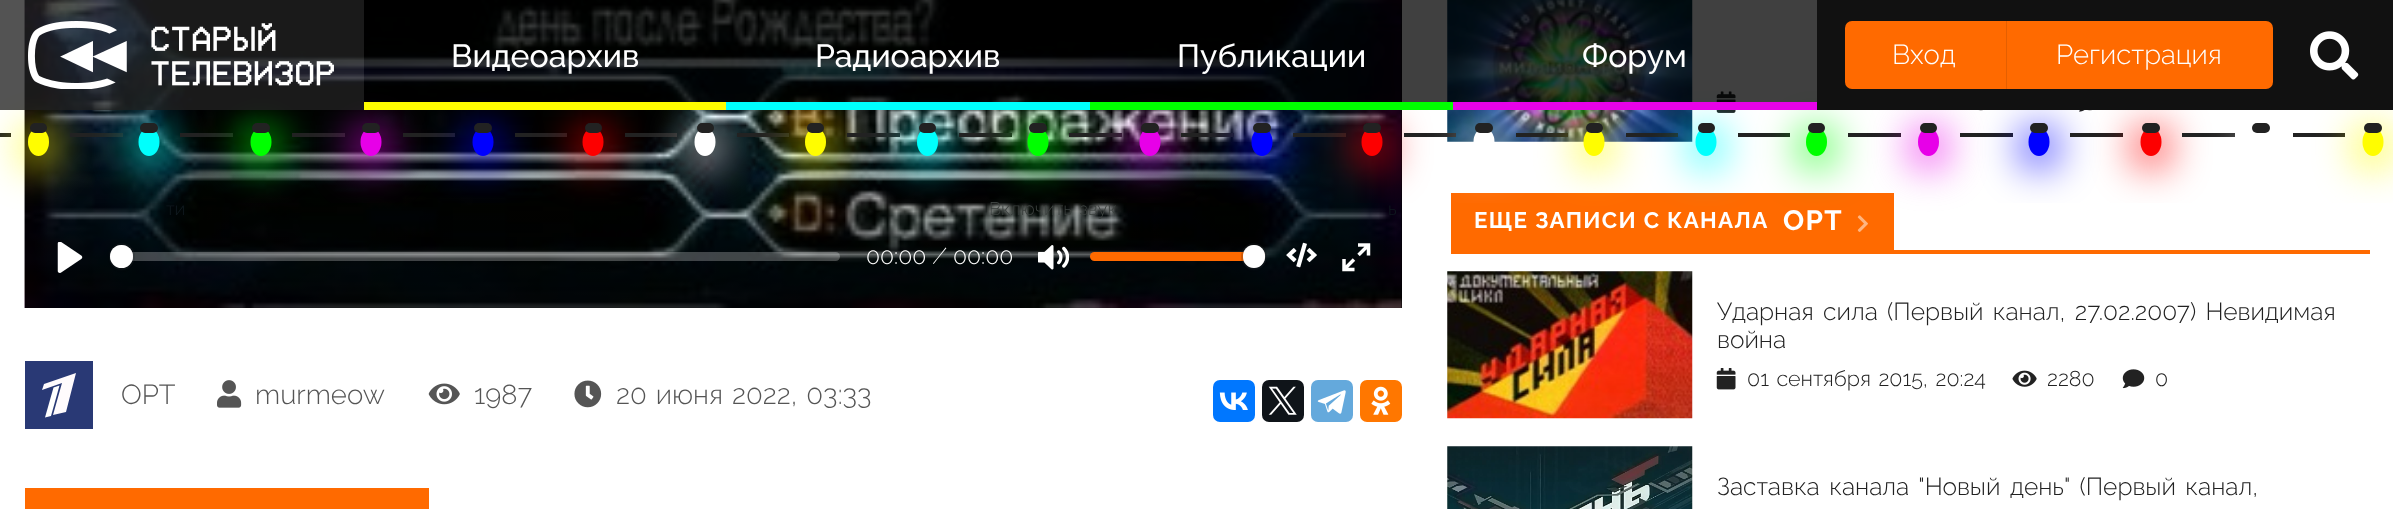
async function draw(canvas) {
	canvas.width = 2393;
	canvas.height = 509;
	const c = canvas.getContext('2d');
	c.miterLimit = 4;
	c.fontKerning = 'normal';
	async function loadImage(src) {
		const img = new Image();
		img.src = src;
		await img.decode();
		return img;
	}
	let gradient;

	c.fillStyle = '#fff';
	c.fillRect(0, 0, 2393, 509);
	c.fillStyle = '#222';
	c.fillRect(0, 133, 11, 4);
	c.drawImage(await loadImage('img3.png'), 24, 0, 1, 308);
	c.fillStyle = '#000';
	c.fillRect(1401, 0, 1, 308);
	c.drawImage(await loadImage('img4.png'), 24, 0, 1378, 308);
	gradient = c.createLinearGradient(713, 163, 713, 308);
	gradient.addColorStop(0, '#00000000');
	gradient.addColorStop(1, '#000000bf');
	c.fillStyle = gradient;
	c.fillRect(25, 170, 1377, 138);
	c.fillStyle = '#fffd00';
	c.filter = 'blur(21px)';
	c.beginPath();
	c.roundRect(23, 128, 31, 38, 15.5);
	c.fill();
	c.filter = 'none';
	c.fillStyle = '#222';
	c.fillRect(70, 133, 53, 4);
	c.save();
	c.beginPath();
	c.rect(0, 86, 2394, 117);
	c.clip();
	c.fillStyle = '#00fffd';
	c.filter = 'blur(21px)';
	c.beginPath();
	c.roundRect(133, 128, 32, 38, 16);
	c.fill();
	c.filter = 'none';
	c.restore();
	c.fillRect(180, 133, 53, 4);
	c.save();
	c.beginPath();
	c.rect(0, 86, 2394, 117);
	c.clip();
	c.fillStyle = '#0f0';
	c.filter = 'blur(21px)';
	c.beginPath();
	c.roundRect(245, 128, 32, 38, 16);
	c.fill();
	c.filter = 'none';
	c.restore();
	c.fillRect(292, 133, 53, 4);
	c.save();
	c.beginPath();
	c.rect(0, 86, 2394, 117);
	c.clip();
	c.fillStyle = '#e700e8';
	c.filter = 'blur(21px)';
	c.beginPath();
	c.roundRect(355, 128, 32, 38, 16);
	c.fill();
	c.filter = 'none';
	c.restore();
	c.fillRect(403, 133, 52, 4);
	c.save();
	c.beginPath();
	c.rect(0, 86, 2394, 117);
	c.clip();
	c.fillStyle = '#00f';
	c.filter = 'blur(21px)';
	c.beginPath();
	c.roundRect(467, 128, 32, 38, 16);
	c.fill();
	c.filter = 'none';
	c.restore();
	c.fillRect(515, 133, 52, 4);
	c.fillStyle = '#fd0000';
	c.filter = 'blur(21px)';
	c.beginPath();
	c.roundRect(578, 128, 31, 38, 15.5);
	c.fill();
	c.filter = 'none';
	c.fillStyle = '#222';
	c.fillRect(625, 133, 52, 4);
	c.fillStyle = '#fff';
	c.filter = 'blur(21px)';
	c.beginPath();
	c.roundRect(690, 128, 31, 38, 15.5);
	c.fill();
	c.filter = 'none';
	c.fillStyle = '#222';
	c.fillRect(737, 133, 52, 4);
	c.fillStyle = '#fffd00';
	c.filter = 'blur(21px)';
	c.beginPath();
	c.roundRect(800, 128, 31, 38, 15.5);
	c.fill();
	c.filter = 'none';
	c.fillStyle = '#222';
	c.fillRect(847, 133, 53, 4);
	c.fillStyle = '#00fffd';
	c.filter = 'blur(21px)';
	c.beginPath();
	c.roundRect(912, 128, 31, 38, 15.5);
	c.fill();
	c.filter = 'none';
	c.fillStyle = '#222';
	c.fillRect(959, 133, 53, 4);
	c.save();
	c.beginPath();
	c.rect(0, 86, 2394, 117);
	c.clip();
	c.fillStyle = '#0f0';
	c.filter = 'blur(21px)';
	c.beginPath();
	c.roundRect(1022, 128, 32, 38, 16);
	c.fill();
	c.filter = 'none';
	c.restore();
	c.fillRect(1069, 133, 53, 4);
	c.save();
	c.beginPath();
	c.rect(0, 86, 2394, 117);
	c.clip();
	c.fillStyle = '#e700e8';
	c.filter = 'blur(21px)';
	c.beginPath();
	c.roundRect(1134, 128, 32, 38, 16);
	c.fill();
	c.filter = 'none';
	c.restore();
	c.fillRect(1181, 133, 53, 4);
	c.save();
	c.beginPath();
	c.rect(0, 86, 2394, 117);
	c.clip();
	c.fillStyle = '#00f';
	c.filter = 'blur(21px)';
	c.beginPath();
	c.roundRect(1246, 128, 32, 38, 16);
	c.fill();
	c.filter = 'none';
	c.restore();
	c.fillRect(1293, 133, 53, 4);
	c.drawImage(await loadImage('img16.png'), 1447, 0, 246, 142);
	c.fillStyle = '#ff6a00';
	c.fillRect(1451, 193, 443, 57);
	c.save();
	c.beginPath();
	c.rect(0, 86, 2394, 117);
	c.clip();
	c.fillStyle = '#fd0000';
	c.filter = 'blur(21px)';
	c.beginPath();
	c.roundRect(1356, 128, 32, 38, 16);
	c.fill();
	c.filter = 'none';
	c.restore();
	c.fillStyle = '#222';
	c.fillRect(1404, 133, 52, 4);
	c.save();
	c.beginPath();
	c.rect(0, 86, 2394, 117);
	c.clip();
	c.fillStyle = '#fff';
	c.filter = 'blur(21px)';
	c.beginPath();
	c.roundRect(1468, 128, 32, 38, 16);
	c.fill();
	c.filter = 'none';
	c.restore();
	c.fillRect(1516, 133, 52, 4);
	c.fillStyle = '#fffd00';
	c.filter = 'blur(21px)';
	c.beginPath();
	c.roundRect(1579, 128, 31, 38, 15.5);
	c.fill();
	c.filter = 'none';
	c.fillStyle = '#222';
	c.fillRect(1626, 133, 52, 4);
	c.drawImage(await loadImage('img17.png'), 1716, 91, 20, 22);
	c.fillStyle = '#00fffd';
	c.filter = 'blur(21px)';
	c.beginPath();
	c.roundRect(1691, 128, 31, 38, 15.5);
	c.fill();
	c.filter = 'none';
	c.fillStyle = '#222';
	c.fillRect(1738, 133, 52, 4);
	c.drawImage(await loadImage('img20.png'), 1857, 215, 11, 17);
	c.fillStyle = '#0f0';
	c.filter = 'blur(21px)';
	c.beginPath();
	c.roundRect(1801, 128, 31, 38, 15.5);
	c.fill();
	c.filter = 'none';
	c.fillStyle = '#000000bf';
	c.fillRect(0, 0, 1817, 110);
	c.fillStyle = '#ffffff1a';
	c.fillRect(0, 0, 364, 110);
	c.drawImage(await loadImage('img1.png'), 28, 21, 306, 68);
	c.font = '500 32px Raleway';
	c.fillStyle = '#fff';
	c.fillText('Видеоархив', 451, 67);
	c.fillStyle = '#fffd00';
	c.fillRect(364, 102, 362, 8);
	c.fillStyle = '#fff';
	c.fillText('Радиоархив', 815, 67);
	c.fillStyle = '#00fffd';
	c.fillRect(726, 102, 364, 8);
	c.fillStyle = '#fff';
	c.fillText('Публикации', 1177, 67);
	c.fillStyle = '#0f0';
	c.fillRect(1090, 102, 363, 8);
	c.fillStyle = '#fff';
	c.fillText('Форум', 1582, 67);
	c.fillStyle = '#e702e8';
	c.fillRect(1453, 102, 364, 8);
	c.fillStyle = '#222';
	c.fillRect(1848, 133, 53, 4);
	c.drawImage(await loadImage('img18.png'), 1978, 110, 5, 1);
	c.fillStyle = '#e700e8';
	c.filter = 'blur(21px)';
	c.beginPath();
	c.roundRect(1913, 128, 31, 38, 15.5);
	c.fill();
	c.filter = 'none';
	c.fillStyle = '#222';
	c.fillRect(1960, 133, 53, 4);
	c.drawImage(await loadImage('img19.png'), 2079, 110, 13, 2);
	c.save();
	c.beginPath();
	c.rect(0, 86, 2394, 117);
	c.clip();
	c.fillStyle = '#00f';
	c.filter = 'blur(21px)';
	c.beginPath();
	c.roundRect(2023, 128, 32, 38, 16);
	c.fill();
	c.filter = 'none';
	c.restore();
	c.fillRect(2070, 133, 53, 4);
	c.save();
	c.beginPath();
	c.rect(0, 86, 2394, 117);
	c.clip();
	c.fillStyle = '#fd0000';
	c.filter = 'blur(21px)';
	c.beginPath();
	c.roundRect(2135, 128, 32, 38, 16);
	c.fill();
	c.filter = 'none';
	c.restore();
	c.fillRect(2182, 133, 53, 4);
	c.save();
	c.beginPath();
	c.rect(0, 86, 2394, 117);
	c.clip();
	c.beginPath();
	c.moveTo(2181, 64);
	c.lineTo(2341, 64);
	c.lineTo(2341, 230);
	c.lineTo(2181, 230);
	c.closePath();
	c.moveTo(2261, 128);
	c.bezierCurveTo(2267, 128, 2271.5, 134, 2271.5, 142);
	c.bezierCurveTo(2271.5, 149.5, 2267, 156, 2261, 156);
	c.bezierCurveTo(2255, 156, 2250.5, 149.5, 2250.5, 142);
	c.bezierCurveTo(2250.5, 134, 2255, 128, 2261, 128);
	c.closePath();
	c.clip('evenodd');
	c.fillStyle = '#fff';
	c.filter = 'blur(21px)';
	c.beginPath();
	c.roundRect(2245, 128, 32, 38, 16);
	c.fill();
	c.filter = 'none';
	c.restore();
	c.fillRect(2293, 133, 52, 4);
	c.save();
	c.beginPath();
	c.rect(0, 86, 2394, 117);
	c.clip();
	c.fillStyle = '#fffd00';
	c.filter = 'blur(21px)';
	c.beginPath();
	c.roundRect(2357, 128, 32, 38, 16);
	c.fill();
	c.filter = 'none';
	c.restore();
	c.fillStyle = '#111';
	c.fillRect(1817, 0, 576, 110);
	c.fillStyle = '#ff6a00';
	c.beginPath();
	c.roundRect(1845, 21, 162, 68, [7, 0, 0, 7]);
	c.fill();
	c.fillStyle = '#0000001a';
	c.fillRect(2006, 21, 1, 68);
	c.font = '300 27.5px Raleway';
	c.fillStyle = '#fff';
	c.fillText('Вход', 1892, 64);
	c.fillStyle = '#ff6a00';
	c.beginPath();
	c.roundRect(2007, 21, 266, 68, [0, 7, 7, 0]);
	c.fill();
	c.fillStyle = '#fff';
	c.fillText('Регистрация', 2056, 64);
	c.drawImage(await loadImage('img2.png'), 2310, 31, 49, 49);
	c.fillStyle = '#fffd00';
	c.beginPath();
	c.ellipse(38.5, 142, 10.5, 14, 0, 0, 2 * Math.PI);
	c.fill();
	c.fillStyle = '#222';
	c.beginPath();
	c.roundRect(30, 123, 17, 10, 5);
	c.fill();
	c.fillStyle = '#00fffd';
	c.beginPath();
	c.ellipse(149, 142, 10.5, 14, 0, 0, 2 * Math.PI);
	c.fill();
	c.fillStyle = '#222';
	c.beginPath();
	c.roundRect(140, 123, 18, 10, 5);
	c.fill();
	c.fillStyle = '#0f0';
	c.beginPath();
	c.ellipse(261, 142, 10.5, 14, 0, 0, 2 * Math.PI);
	c.fill();
	c.fillStyle = '#222';
	c.beginPath();
	c.roundRect(252, 123, 18, 10, 5);
	c.fill();
	c.fillStyle = '#e700e8';
	c.beginPath();
	c.ellipse(371, 142, 10.5, 14, 0, 0, 2 * Math.PI);
	c.fill();
	c.fillStyle = '#222';
	c.beginPath();
	c.roundRect(362, 123, 18, 10, 5);
	c.fill();
	c.fillStyle = '#00f';
	c.beginPath();
	c.ellipse(483, 142, 10.5, 14, 0, 0, 2 * Math.PI);
	c.fill();
	c.fillStyle = '#222';
	c.beginPath();
	c.roundRect(474, 123, 18, 10, 5);
	c.fill();
	c.fillStyle = '#fd0000';
	c.beginPath();
	c.ellipse(593, 142, 10.5, 14, 0, 0, 2 * Math.PI);
	c.fill();
	c.fillStyle = '#222';
	c.beginPath();
	c.roundRect(585, 123, 17, 10, 5);
	c.fill();
	c.fillStyle = '#fff';
	c.beginPath();
	c.ellipse(705, 142, 10.5, 14, 0, 0, 2 * Math.PI);
	c.fill();
	c.fillStyle = '#222';
	c.beginPath();
	c.roundRect(697, 123, 17, 10, 5);
	c.fill();
	c.fillStyle = '#fffd00';
	c.beginPath();
	c.ellipse(815.5, 142, 10.5, 14, 0, 0, 2 * Math.PI);
	c.fill();
	c.fillStyle = '#222';
	c.beginPath();
	c.roundRect(807, 123, 17, 10, 5);
	c.fill();
	c.fillStyle = '#00fffd';
	c.beginPath();
	c.ellipse(927.5, 142, 10.5, 14, 0, 0, 2 * Math.PI);
	c.fill();
	c.fillStyle = '#222';
	c.beginPath();
	c.roundRect(919, 123, 17, 10, 5);
	c.fill();
	c.fillStyle = '#0f0';
	c.beginPath();
	c.ellipse(1038, 142, 10.5, 14, 0, 0, 2 * Math.PI);
	c.fill();
	c.fillStyle = '#222';
	c.beginPath();
	c.roundRect(1029, 123, 18, 10, 5);
	c.fill();
	c.fillStyle = '#e700e8';
	c.beginPath();
	c.ellipse(1150, 142, 10.5, 14, 0, 0, 2 * Math.PI);
	c.fill();
	c.fillStyle = '#222';
	c.beginPath();
	c.roundRect(1141, 123, 18, 10, 5);
	c.fill();
	c.fillStyle = '#00f';
	c.beginPath();
	c.ellipse(1262, 142, 10.5, 14, 0, 0, 2 * Math.PI);
	c.fill();
	c.fillStyle = '#222';
	c.beginPath();
	c.roundRect(1253, 123, 18, 10, 5);
	c.fill();
	c.fillStyle = '#fd0000';
	c.beginPath();
	c.ellipse(1372, 142, 10.5, 14, 0, 0, 2 * Math.PI);
	c.fill();
	c.fillStyle = '#222';
	c.beginPath();
	c.roundRect(1363, 123, 18, 10, 5);
	c.fill();
	c.fillStyle = '#fff';
	c.beginPath();
	c.ellipse(1484, 142, 10.5, 14, 0, 0, 2 * Math.PI);
	c.fill();
	c.fillStyle = '#222';
	c.beginPath();
	c.roundRect(1475, 123, 18, 10, 5);
	c.fill();
	c.fillStyle = '#fffd00';
	c.beginPath();
	c.ellipse(1594, 142, 10.5, 14, 0, 0, 2 * Math.PI);
	c.fill();
	c.fillStyle = '#222';
	c.beginPath();
	c.roundRect(1586, 123, 17, 10, 5);
	c.fill();
	c.fillStyle = '#00fffd';
	c.beginPath();
	c.ellipse(1706, 142, 10.5, 14, 0, 0, 2 * Math.PI);
	c.fill();
	c.fillStyle = '#222';
	c.beginPath();
	c.roundRect(1698, 123, 17, 10, 5);
	c.fill();
	c.fillStyle = '#0f0';
	c.beginPath();
	c.ellipse(1816.5, 142, 10.5, 14, 0, 0, 2 * Math.PI);
	c.fill();
	c.fillStyle = '#222';
	c.beginPath();
	c.roundRect(1808, 123, 17, 10, 5);
	c.fill();
	c.fillStyle = '#e700e8';
	c.beginPath();
	c.ellipse(1928.5, 142, 10.5, 14, 0, 0, 2 * Math.PI);
	c.fill();
	c.fillStyle = '#222';
	c.beginPath();
	c.roundRect(1920, 123, 17, 10, 5);
	c.fill();
	c.fillStyle = '#00f';
	c.beginPath();
	c.ellipse(2039, 142, 10.5, 14, 0, 0, 2 * Math.PI);
	c.fill();
	c.fillStyle = '#222';
	c.beginPath();
	c.roundRect(2030, 123, 18, 10, 5);
	c.fill();
	c.fillStyle = '#fd0000';
	c.beginPath();
	c.ellipse(2151, 142, 10.5, 14, 0, 0, 2 * Math.PI);
	c.fill();
	c.fillStyle = '#222';
	c.beginPath();
	c.roundRect(2142, 123, 18, 10, 5);
	c.fill();
	c.beginPath();
	c.roundRect(2252, 123, 18, 10, 5);
	c.fill();
	c.fillStyle = '#fffd00';
	c.beginPath();
	c.ellipse(2373, 142, 10.5, 14, 0, 0, 2 * Math.PI);
	c.fill();
	c.fillStyle = '#222';
	c.beginPath();
	c.roundRect(2364, 123, 18, 10, 5);
	c.fill();
	c.font = '300 18.25px Raleway';
	c.fillStyle = '#101a20';
	c.fillText('ти', 166, 215);
	c.drawImage(await loadImage('img5.png'), 57, 242, 26, 31);
	c.wordSpacing = '3px';
	c.fillStyle = '#3b403e';
	c.fillText('Включить звук', 989, 215);
	c.drawImage(await loadImage('img6.png'), 1038, 245, 31, 25);
	c.wordSpacing = '0px';
	c.fillStyle = '#101a20';
	c.fillText('ь', 1388, 215);
	c.drawImage(await loadImage('img7.png'), 1342, 243, 29, 29);
	c.fillStyle = '#ffffff40';
	c.beginPath();
	c.roundRect(110, 252, 730, 9, 4.5);
	c.fill();
	c.beginPath();
	c.roundRect(110, 244, 24, 25, 12);
	c.strokeStyle = '#23282f33';
	c.lineWidth = 2;
	c.stroke();
	c.fillStyle = '#23282f26';
	c.filter = 'blur(1px)';
	c.beginPath();
	c.roundRect(110, 247, 23, 23, 11.5);
	c.fill();
	c.filter = 'none';
	c.fillStyle = '#fff';
	c.beginPath();
	c.arc(121.5, 256.5, 11.5, 0, 2 * Math.PI);
	c.fill();
	c.font = '300 23px Raleway';
	for (const [text, x, y] of [
		['00:00', 866, 264],
		['⁄', 938, 264],
		['00:00', 953, 264],
	]) {
		c.fillText(text, x, y);
	}
	c.fillStyle = '#ff6a00';
	c.beginPath();
	c.roundRect(1090, 252, 175, 9, 4.5);
	c.fill();
	c.beginPath();
	c.roundRect(1242, 244, 24, 25, 12);
	c.stroke();
	c.fillStyle = '#23282f26';
	c.filter = 'blur(1px)';
	c.beginPath();
	c.roundRect(1243, 247, 22, 23, 11);
	c.fill();
	c.filter = 'none';
	c.fillStyle = '#fff';
	c.beginPath();
	c.roundRect(1243, 245, 22, 23, 11);
	c.fill();
	c.drawImage(await loadImage('img8.png'), 1286, 242, 31, 26);
	c.fillStyle = '#293975';
	c.fillRect(25, 361, 68, 68);
	c.fillStyle = '#fffbfd';
	c.beginPath();
	c.moveTo(44, 384);
	c.lineTo(76, 373);
	c.lineTo(66, 412);
	c.lineTo(53, 415);
	c.lineTo(62, 383);
	c.lineTo(42, 390);
	c.closePath();
	c.fill();
	c.fillStyle = '#fff';
	c.beginPath();
	c.moveTo(53.5, 387.5);
	c.lineTo(59.5, 385.5);
	c.lineTo(51, 416);
	c.lineTo(45, 417.5);
	c.closePath();
	c.fill();
	c.font = '300 27.5px Raleway';
	c.fillStyle = '#555';
	c.fillText('ОРТ', 121, 404);
	c.drawImage(await loadImage('img9.png'), 217, 380, 25, 28);
	c.fillText('murmeow', 255, 404);
	c.drawImage(await loadImage('img10.png'), 428, 383, 32, 22);
	c.fillText('1987', 474, 404);
	c.drawImage(await loadImage('img11.png'), 574, 380, 28, 28);
	c.wordSpacing = '2px';
	c.fillText('20 июня 2022, 03:33', 616, 404);
	c.fillStyle = '#07f';
	c.beginPath();
	c.roundRect(1213, 380, 42, 42, 7);
	c.fill();
	c.drawImage(await loadImage('img12.png'), 1219, 392, 29, 18);
	c.fillStyle = '#0f1419';
	c.beginPath();
	c.roundRect(1262, 380, 42, 42, 7);
	c.fill();
	c.drawImage(await loadImage('img13.png'), 1268, 386, 29, 29);
	c.fillStyle = '#64a9dc';
	c.beginPath();
	c.roundRect(1311, 380, 42, 42, 7);
	c.fill();
	c.drawImage(await loadImage('img14.png'), 1317, 390, 29, 24);
	c.fillStyle = '#f70';
	c.beginPath();
	c.roundRect(1360, 380, 42, 42, 7);
	c.fill();
	c.drawImage(await loadImage('img15.png'), 1371, 386, 20, 29);
	c.fillStyle = '#ff6a00';
	c.fillRect(25, 488, 404, 21);
	c.fillRect(1451, 250, 919, 4);
	c.letterSpacing = '1.3px';
	c.wordSpacing = '0px';
	c.font = 'bold 22.4px Raleway';
	c.fillStyle = '#fff';
	c.fillText('ЕЩЕ ЗАПИСИ С КАНАЛА', 1474, 228);
	c.font = 'bold 28px Raleway';
	c.fillText('ОРТ', 1783, 230);
	c.drawImage(await loadImage('img21.png'), 1447, 271, 246, 148);
	c.letterSpacing = '0px';
	c.wordSpacing = '3px';
	c.font = '300 24.5px Raleway';
	c.fillStyle = '#222';
	c.fillText('Ударная сила (Первый канал, 27.02.2007) Невидимая', 1717, 320);
	c.wordSpacing = '0px';
	c.fillText('война', 1717, 348);
	c.drawImage(await loadImage('img22.png'), 1716, 368, 20, 22);
	c.wordSpacing = '2px';
	c.font = '300 21.5px Raleway';
	c.fillText('01 сентября 2015, 20:24', 1747, 386);
	c.drawImage(await loadImage('img23.png'), 2012, 370, 25, 17);
	c.wordSpacing = '0px';
	c.fillText('2280', 2047, 386);
	c.drawImage(await loadImage('img24.png'), 2122, 369, 23, 20);
	c.fillText('0', 2155, 386);
	c.drawImage(await loadImage('img25.png'), 1447, 446, 246, 63);
	c.wordSpacing = '3.25px';
	c.font = '300 24.5px Raleway';
	c.fillText('Заставка канала "Новый день" (Первый канал,', 1717, 495);
}

draw(document.querySelector('canvas'));
